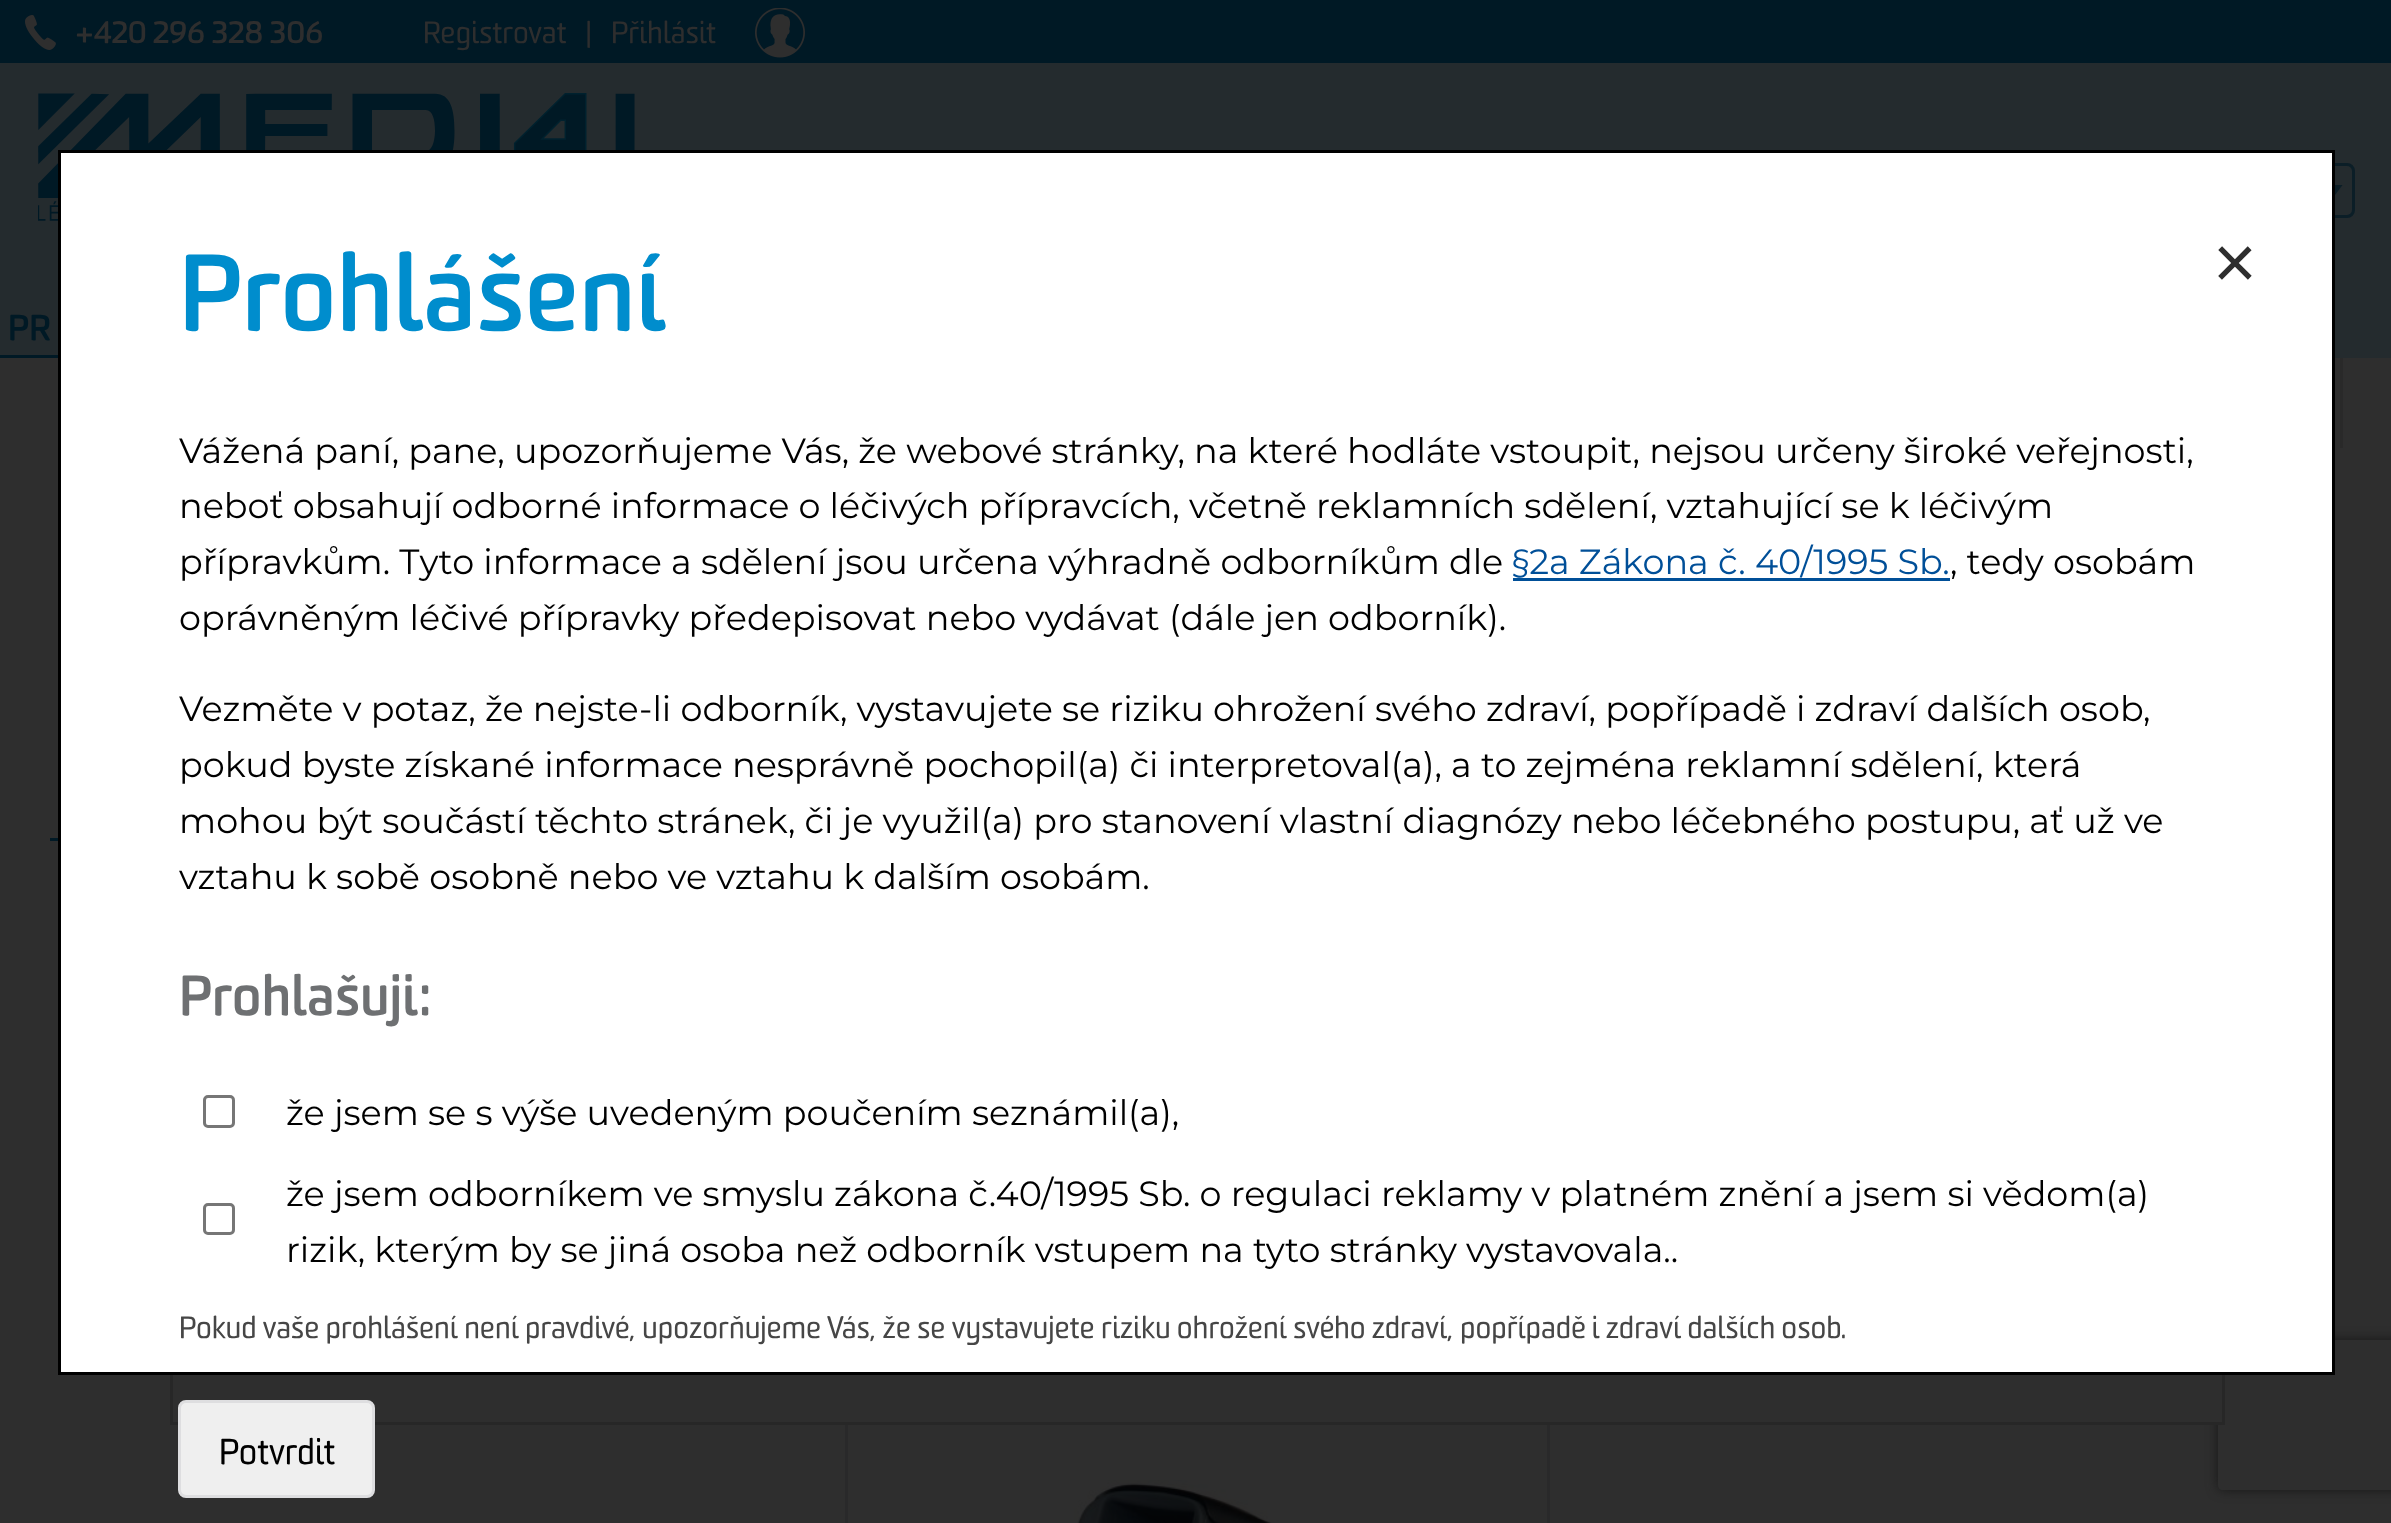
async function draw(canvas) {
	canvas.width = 2391;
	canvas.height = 1523;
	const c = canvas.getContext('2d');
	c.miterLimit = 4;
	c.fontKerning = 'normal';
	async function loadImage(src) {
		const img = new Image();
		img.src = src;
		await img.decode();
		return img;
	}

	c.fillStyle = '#2e2e2e';
	c.fillRect(0, 0, 2391, 1523);
	c.fillStyle = '#242b2e';
	c.fillRect(0, 63, 2391, 295);
	c.fillStyle = '#001925';
	c.fillRect(0, 0, 2391, 63);
	c.drawImage(await loadImage('img1.png'), 25, 15, 31, 35);
	c.font = 'bold 30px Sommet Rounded';
	c.fillStyle = '#2e2e2e';
	c.fillText('+420 296 328 306', 75, 43);
	c.font = '30px Sommet Rounded';
	for (const [text, x, y] of [
		['Registrovat', 423, 43],
		['|', 585, 43],
		['Přihlásit', 611, 43],
	]) {
		c.fillText(text, x, y);
	}
	c.drawImage(await loadImage('img2.png'), 755, 8, 50, 50);
	c.drawImage(await loadImage('img3.png'), 38, 93, 597, 128);
	c.beginPath();
	c.roundRect(2276.5, 164.5, 77, 52, 6.5);
	c.strokeStyle = '#0b1e27';
	c.lineWidth = 3;
	c.stroke();
	c.fillStyle = '#0b1e27';
	c.beginPath();
	c.moveTo(2327.5, 185);
	c.lineTo(2342.5, 185);
	c.lineTo(2335, 195);
	c.closePath();
	c.fill();
	c.font = 'bold 35px Sommet Rounded';
	c.fillStyle = '#001925';
	c.fillText('PR', 8, 340);
	c.fillRect(0, 355, 58, 3);
	c.strokeStyle = '#29292a';
	c.strokeRect(846.5, 1404.5, 702, 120);
	c.save();
	c.beginPath();
	c.moveTo(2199, 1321);
	c.lineTo(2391, 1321);
	c.lineTo(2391, 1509);
	c.lineTo(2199, 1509);
	c.closePath();
	c.moveTo(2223, 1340);
	c.lineTo(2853, 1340);
	c.bezierCurveTo(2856, 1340, 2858, 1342, 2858, 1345);
	c.lineTo(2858, 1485);
	c.bezierCurveTo(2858, 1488, 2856, 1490, 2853, 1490);
	c.lineTo(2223, 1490);
	c.bezierCurveTo(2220, 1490, 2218, 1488, 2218, 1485);
	c.lineTo(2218, 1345);
	c.bezierCurveTo(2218, 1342, 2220, 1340, 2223, 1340);
	c.closePath();
	c.clip('evenodd');
	c.fillStyle = '#171717';
	c.filter = 'blur(6px)';
	c.beginPath();
	c.roundRect(2218, 1340, 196, 150, 5);
	c.fill();
	c.filter = 'none';
	c.restore();
	c.fillStyle = '#2e2e2e';
	c.fillRect(845, 1375, 1373, 47);
	c.strokeStyle = '#272727';
	c.strokeRect(171.5, 871.5, 2052, 552);
	c.fillStyle = '#fff';
	c.beginPath();
	c.rect(59.5, 151.5, 2274, 1222);
	c.fill();
	c.strokeStyle = '#000';
	c.stroke();
	c.font = 'bold 105px Sommet Rounded';
	c.fillStyle = '#008dcd';
	c.fillText('Prohlášení', 179, 330);
	c.font = '35px Montserrat';
	c.fillStyle = '#000';
	for (const [text, x, y] of [
		['Vážená paní, pane, upozorňujeme Vás, že webové stránky, na které hodláte vstoupit, nejsou určeny široké veřejnosti,', 179, 463],
		['neboť obsahují odborné informace o léčivých přípravcích, včetně reklamních sdělení, vztahující se k léčivým', 179, 518],
		['přípravkům. Tyto informace a sdělení jsou určena výhradně odborníkům dle', 179, 574],
	]) {
		c.fillText(text, x, y);
	}
	c.fillStyle = '#004f98';
	c.fillText('§2a Zákona č. 40/1995 Sb.', 1512, 574);
	c.fillRect(1513, 578, 437, 3);
	c.fillStyle = '#000';
	for (const [text, x, y] of [
		[', tedy osobám', 1950, 574],
		['oprávněným léčivé přípravky předepisovat nebo vydávat (dále jen odborník).', 179, 630],
		['Vezměte v potaz, že nejste-li odborník, vystavujete se riziku ohrožení svého zdraví, popřípadě i zdraví dalších osob,', 179, 721],
		['pokud byste získané informace nesprávně pochopil(a) či interpretoval(a), a to zejména reklamní sdělení, která', 179, 777],
		['mohou být součástí těchto stránek, či je využil(a) pro stanovení vlastní diagnózy nebo léčebného postupu, ať už ve', 179, 833],
		['vztahu k sobě osobně nebo ve vztahu k dalším osobám.', 179, 889],
	]) {
		c.fillText(text, x, y);
	}
	c.font = 'bold 55px Sommet Rounded';
	c.fillStyle = '#6e7072';
	c.fillText('Prohlašuji:', 179, 1015);
	c.beginPath();
	c.roundRect(204.5, 1096.5, 29, 30, 3.5);
	c.strokeStyle = '#767676';
	c.stroke();
	c.font = '35px Montserrat';
	c.fillStyle = '#000';
	c.fillText('že jsem se s výše uvedeným poučením seznámil(a),', 286, 1125);
	c.beginPath();
	c.roundRect(204.5, 1204.5, 29, 29, 3.5);
	c.stroke();
	c.fillText('že jsem odborníkem ve smyslu zákona č.40/1995 Sb. o regulaci reklamy v platném znění a jsem si vědom(a)', 286, 1206);
	c.fillText('rizik, kterým by se jiná osoba než odborník vstupem na tyto stránky vystavovala..', 286, 1262);
	c.font = '30px Sommet Rounded';
	c.fillStyle = '#464646';
	c.fillText('Pokud vaše prohlášení není pravdivé, upozorňujeme Vás, že se vystavujete riziku ohrožení svého zdraví, popřípadě i zdraví dalších osob.', 179, 1338);
	c.fillStyle = '#efefef';
	c.beginPath();
	c.roundRect(179.5, 1401.5, 194, 95, 6.5);
	c.fill();
	c.strokeStyle = '#dedee0';
	c.stroke();
	c.font = '35px Sommet Rounded';
	c.fillStyle = '#000';
	c.fillText('Potvrdit', 219, 1464);
	c.font = '75px Liberation Sans';
	c.fillStyle = '#2e2e2e';
	c.fillText('×', 2213, 288);
	c.fillStyle = '#292929';
	c.fillRect(2340, 358, 3, 90);
	c.fillStyle = '#001925';
	c.fillRect(50, 838, 8, 3);
	c.drawImage(await loadImage('img4.png'), 1074, 1480, 205, 43);
}

draw(document.querySelector('canvas'));
